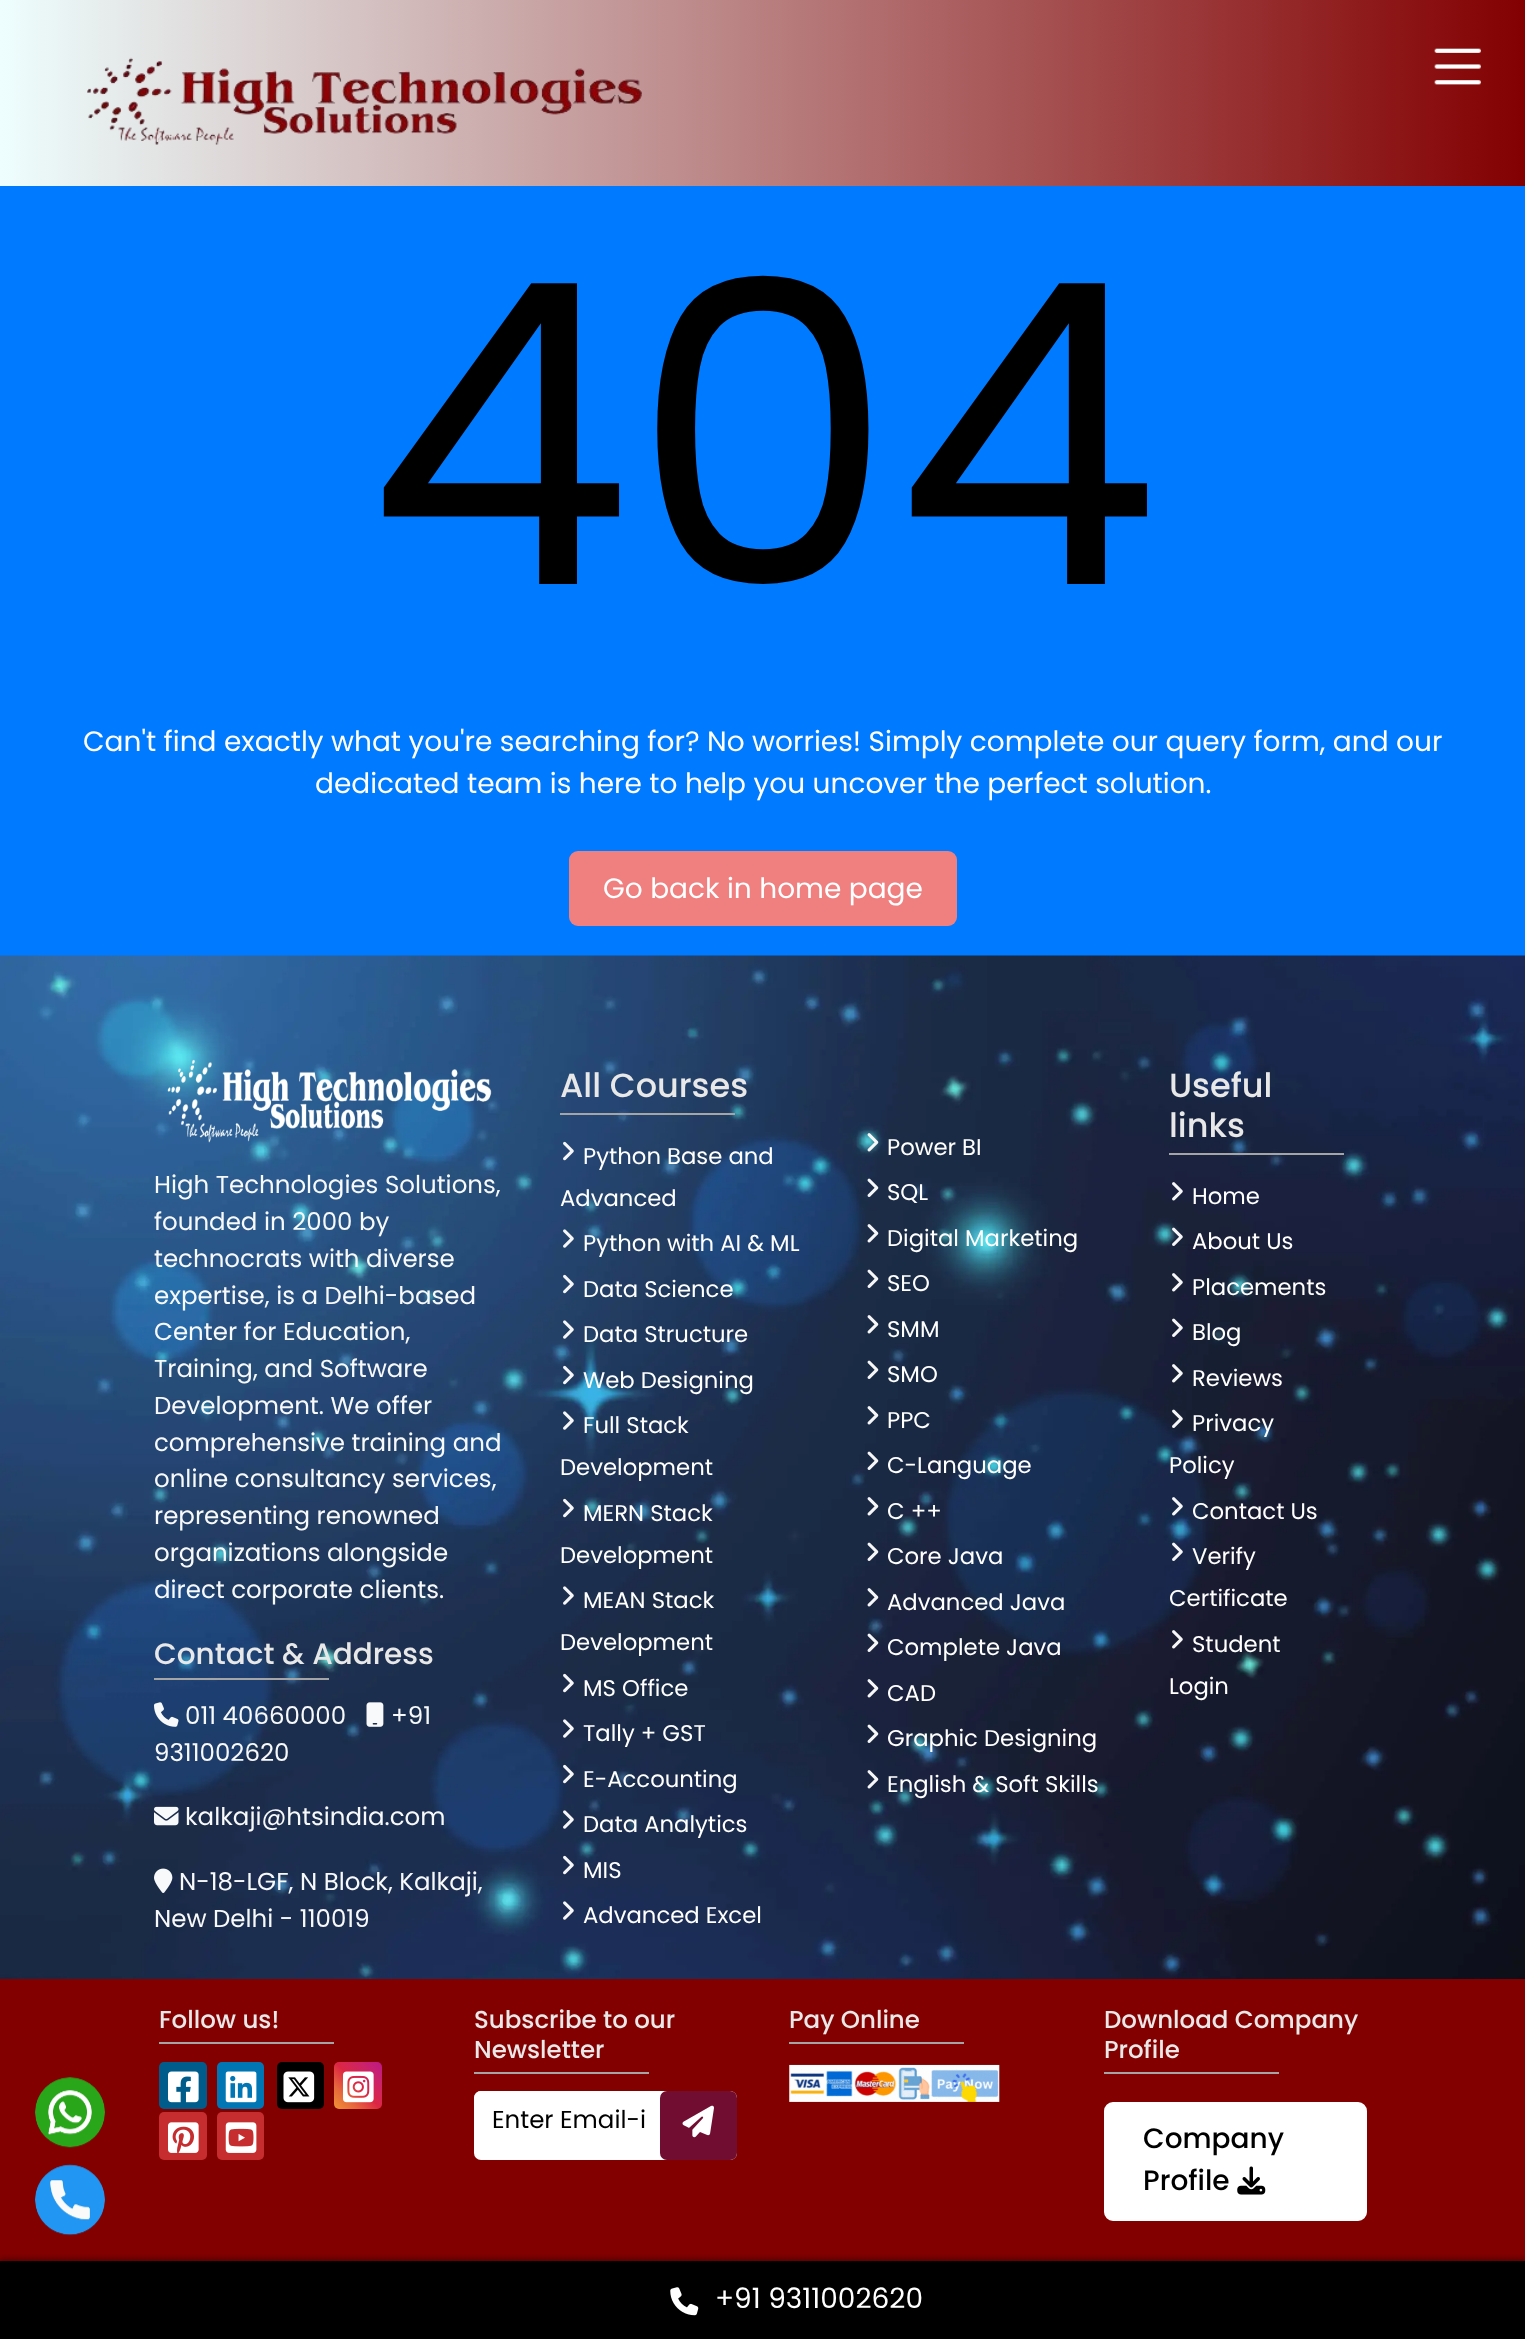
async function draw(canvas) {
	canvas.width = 1525;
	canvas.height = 2339;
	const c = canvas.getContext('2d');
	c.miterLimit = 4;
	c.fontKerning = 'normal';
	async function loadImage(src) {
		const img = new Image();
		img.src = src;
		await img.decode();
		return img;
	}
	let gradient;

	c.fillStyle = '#007aff';
	c.fillRect(0, 0, 1525, 2339);
	gradient = c.createLinearGradient(0, 93, 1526, 93);
	gradient.addColorStop(0, '#eefefe');
	gradient.addColorStop(1, '#830001');
	c.fillStyle = gradient;
	c.fillRect(0, 0, 1525, 186);
	c.drawImage(await loadImage('img1.png'), 87, 57, 555, 88);
	c.drawImage(await loadImage('img2.png'), 1434, 48, 47, 37);
	c.font = '420px Poppins';
	c.fillStyle = '#000';
	c.fillText('404', 367, 584);
	c.font = '28px Poppins';
	c.fillStyle = '#fff';
	c.fillText('Can\'t find exactly what you\'re searching for? No worries! Simply complete our query form, and our', 83, 751);
	c.fillText('dedicated team is here to help you uncover the perfect solution.', 315, 793);
	c.fillStyle = '#f08080';
	c.beginPath();
	c.roundRect(569, 851, 388, 75, 9);
	c.fill();
	c.fillStyle = '#fff';
	c.fillText('Go back in home page', 603, 898);
	c.fillStyle = '#830001';
	c.fillRect(0, 1979, 1525, 282);
	c.drawImage(await loadImage('img3.png'), 35, 2077, 70, 71);
	c.drawImage(await loadImage('img4.png'), 35, 2164, 70, 72);
	c.drawImage(await loadImage('img5.png'), 0, 955, 1525, 1024);
	c.drawImage(await loadImage('img6.png'), 167, 1059, 325, 84);
	c.font = '24.5px Poppins';
	c.fillStyle = '#f8f9fa';
	for (const [text, x, y] of [
		['High Technologies Solutions,', 154, 1193],
		['founded in 2000 by', 154, 1230],
		['technocrats with diverse', 154, 1267],
		['expertise, is a Delhi-based', 154, 1304],
		['Center for Education,', 154, 1340],
		['Training, and Software', 154, 1377],
		['Development. We offer', 154, 1414],
		['comprehensive training and', 154, 1451],
		['online consultancy services,', 154, 1487],
		['representing renowned', 154, 1524],
		['organizations alongside', 154, 1561],
		['direct corporate clients.', 154, 1598],
	]) {
		c.fillText(text, x, y);
	}
	c.font = '500 29.5px Poppins';
	c.fillStyle = '#e8e8e8';
	c.fillText('Contact & Address', 154, 1664);
	c.fillStyle = '#a5a5a5';
	c.fillRect(154, 1678, 175, 2);
	c.drawImage(await loadImage('img7.png'), 366, 1702, 18, 25);
	c.font = '24.5px Poppins';
	c.fillStyle = '#f8f9fa';
	c.fillText('+91', 391, 1724);
	c.fillText('9311002620', 154, 1761);
	c.drawImage(await loadImage('img8.png'), 154, 1702, 25, 25);
	c.fillText('011 40660000', 185, 1724);
	c.drawImage(await loadImage('img9.png'), 154, 1806, 25, 20);
	c.fillText('kalkaji@htsindia.com', 185, 1825);
	c.drawImage(await loadImage('img10.png'), 154, 1868, 19, 25);
	c.fillText('N-18-LGF, N Block, Kalkaji,', 179, 1890);
	c.fillText('New Delhi - 110019', 154, 1927);
	c.font = '500 33.5px Poppins';
	c.fillStyle = '#e8e8e8';
	c.fillText('All Courses', 560, 1097);
	c.fillStyle = '#a5a5a5';
	c.fillRect(560, 1113, 175, 2);
	c.drawImage(await loadImage('img11.png'), 563, 1141, 11, 20);
	c.font = '22.75px Poppins';
	c.fillStyle = '#fff';
	c.fillText('Python Base and', 583, 1164);
	c.fillText('Advanced', 560, 1206);
	c.drawImage(await loadImage('img12.png'), 563, 1229, 11, 19);
	c.fillText('Python with AI & ML', 583, 1251);
	c.drawImage(await loadImage('img13.png'), 563, 1274, 11, 20);
	c.fillText('Data Science', 583, 1297);
	c.drawImage(await loadImage('img14.png'), 563, 1320, 11, 19);
	c.fillText('Data Structure', 583, 1342);
	c.drawImage(await loadImage('img15.png'), 563, 1365, 11, 20);
	c.fillText('Web Designing', 583, 1388);
	c.drawImage(await loadImage('img16.png'), 563, 1411, 11, 19);
	c.fillText('Full Stack', 583, 1433);
	c.fillText('Development', 560, 1475);
	c.drawImage(await loadImage('img17.png'), 563, 1498, 11, 20);
	c.fillText('MERN Stack', 583, 1521);
	c.fillText('Development', 560, 1563);
	c.drawImage(await loadImage('img18.png'), 563, 1586, 11, 19);
	c.fillText('MEAN Stack', 583, 1608);
	c.fillText('Development', 560, 1650);
	c.drawImage(await loadImage('img19.png'), 563, 1673, 11, 20);
	c.fillText('MS Office', 583, 1696);
	c.drawImage(await loadImage('img20.png'), 563, 1719, 11, 19);
	c.fillText('Tally + GST', 583, 1741);
	c.drawImage(await loadImage('img21.png'), 563, 1764, 11, 20);
	c.fillText('E-Accounting', 583, 1787);
	c.drawImage(await loadImage('img22.png'), 563, 1810, 11, 19);
	c.fillText('Data Analytics', 583, 1832);
	c.drawImage(await loadImage('img23.png'), 563, 1855, 11, 20);
	c.fillText('MIS', 583, 1878);
	c.drawImage(await loadImage('img24.png'), 563, 1901, 11, 19);
	c.fillText('Advanced Excel', 583, 1923);
	c.drawImage(await loadImage('img25.png'), 867, 1133, 12, 19);
	c.fillText('Power BI', 887, 1155);
	c.drawImage(await loadImage('img26.png'), 867, 1178, 12, 19);
	c.fillText('SQL', 887, 1200);
	c.drawImage(await loadImage('img27.png'), 867, 1224, 12, 19);
	c.fillText('Digital Marketing', 887, 1246);
	c.drawImage(await loadImage('img28.png'), 867, 1269, 12, 19);
	c.fillText('SEO', 887, 1291);
	c.drawImage(await loadImage('img29.png'), 867, 1315, 12, 19);
	c.fillText('SMM', 887, 1337);
	c.drawImage(await loadImage('img30.png'), 867, 1360, 12, 19);
	c.fillText('SMO', 887, 1382);
	c.drawImage(await loadImage('img31.png'), 867, 1406, 12, 19);
	c.fillText('PPC', 887, 1428);
	c.drawImage(await loadImage('img32.png'), 867, 1451, 12, 19);
	c.fillText('C-Language', 887, 1473);
	c.drawImage(await loadImage('img33.png'), 867, 1497, 12, 19);
	c.fillText('C ++', 887, 1519);
	c.drawImage(await loadImage('img34.png'), 867, 1542, 12, 19);
	c.fillText('Core Java', 887, 1564);
	c.drawImage(await loadImage('img35.png'), 867, 1588, 12, 19);
	c.fillText('Advanced Java', 887, 1610);
	c.drawImage(await loadImage('img36.png'), 867, 1633, 12, 19);
	c.fillText('Complete Java', 887, 1655);
	c.drawImage(await loadImage('img37.png'), 867, 1679, 12, 19);
	c.fillText('CAD', 887, 1701);
	c.drawImage(await loadImage('img38.png'), 867, 1724, 12, 19);
	c.fillText('Graphic Designing', 887, 1746);
	c.drawImage(await loadImage('img39.png'), 867, 1770, 12, 19);
	c.fillText('English & Soft Skills', 887, 1792);
	c.font = '500 33.5px Poppins';
	c.fillStyle = '#e8e8e8';
	c.fillText('Useful', 1169, 1097);
	c.fillText('links', 1169, 1137);
	c.fillStyle = '#a5a5a5';
	c.fillRect(1169, 1153, 175, 2);
	c.drawImage(await loadImage('img40.png'), 1172, 1182, 11, 19);
	c.font = '22.75px Poppins';
	c.fillStyle = '#fff';
	c.fillText('Home', 1192, 1204);
	c.drawImage(await loadImage('img41.png'), 1172, 1227, 11, 19);
	c.fillText('About Us', 1192, 1249);
	c.drawImage(await loadImage('img42.png'), 1172, 1273, 11, 19);
	c.fillText('Placements', 1192, 1295);
	c.drawImage(await loadImage('img43.png'), 1172, 1318, 11, 19);
	c.fillText('Blog', 1192, 1340);
	c.drawImage(await loadImage('img44.png'), 1172, 1364, 11, 19);
	c.fillText('Reviews', 1192, 1386);
	c.drawImage(await loadImage('img45.png'), 1172, 1409, 11, 19);
	c.fillText('Privacy', 1192, 1431);
	c.fillText('Policy', 1169, 1473);
	c.drawImage(await loadImage('img46.png'), 1172, 1497, 11, 19);
	c.fillText('Contact Us', 1192, 1519);
	c.drawImage(await loadImage('img47.png'), 1172, 1542, 11, 19);
	c.fillText('Verify', 1192, 1564);
	c.fillText('Certificate', 1169, 1606);
	c.drawImage(await loadImage('img48.png'), 1172, 1630, 11, 19);
	c.fillText('Student', 1192, 1652);
	c.fillText('Login', 1169, 1694);
	c.font = '500 24.5px Poppins';
	c.fillStyle = '#e8e8e8';
	c.fillText('Follow us!', 159, 2028);
	c.fillStyle = '#a5a5a5';
	c.fillRect(159, 2042, 175, 2);
	c.fillStyle = '#005c8a';
	c.beginPath();
	c.roundRect(159, 2062, 48, 47, 5);
	c.fill();
	c.drawImage(await loadImage('img49.png'), 168, 2071, 31, 32);
	c.fillStyle = '#0077b4';
	c.beginPath();
	c.roundRect(217, 2062, 47, 47, 5);
	c.fill();
	c.drawImage(await loadImage('img50.png'), 225, 2071, 32, 32);
	c.fillStyle = '#000';
	c.beginPath();
	c.roundRect(277, 2062, 47, 47, 5);
	c.fill();
	c.drawImage(await loadImage('img51.png'), 283, 2071, 32, 32);
	gradient = c.createLinearGradient(334, 2109, 382, 2062);
	gradient.addColorStop(0, '#f09433');
	gradient.addColorStop(0.25, '#e6683c');
	gradient.addColorStop(0.5, '#dc2743');
	gradient.addColorStop(0.75, '#cc2366');
	gradient.addColorStop(1, '#bc1888');
	c.fillStyle = gradient;
	c.beginPath();
	c.roundRect(334, 2062, 48, 47, 5);
	c.fill();
	c.drawImage(await loadImage('img52.png'), 343, 2071, 31, 32);
	c.fillStyle = '#c52d2f';
	c.beginPath();
	c.roundRect(159, 2112, 48, 48, 5);
	c.fill();
	c.drawImage(await loadImage('img53.png'), 168, 2122, 31, 31);
	c.beginPath();
	c.roundRect(217, 2112, 47, 48, 5);
	c.fill();
	c.drawImage(await loadImage('img54.png'), 225, 2122, 32, 31);
	c.fillStyle = '#e8e8e8';
	c.fillText('Subscribe to our', 474, 2028);
	c.fillText('Newsletter', 474, 2058);
	c.fillStyle = '#a5a5a5';
	c.fillRect(474, 2072, 175, 2);
	c.fillStyle = '#fff';
	c.beginPath();
	c.roundRect(474, 2091, 263, 69, 7);
	c.fill();
	c.beginPath();
	c.roundRect(474, 2091, 188, 60, [7, 0, 0, 7]);
	c.fill();
	c.font = '24.5px Poppins';
	c.fillStyle = '#000';
	c.fillText('Enter Email-i', 492, 2128);
	c.fillStyle = '#700d31';
	c.beginPath();
	c.roundRect(660, 2091, 77, 69, 7);
	c.fill();
	c.drawImage(await loadImage('img55.png'), 682, 2105, 32, 33);
	c.font = '500 24.5px Poppins';
	c.fillStyle = '#e8e8e8';
	c.fillText('Pay Online', 789, 2028);
	c.fillStyle = '#a5a5a5';
	c.fillRect(789, 2042, 175, 2);
	c.drawImage(await loadImage('img56.png'), 789, 2064, 211, 38);
	c.fillStyle = '#e8e8e8';
	c.fillText('Download Company', 1104, 2028);
	c.fillText('Profile', 1104, 2058);
	c.fillStyle = '#a5a5a5';
	c.fillRect(1104, 2072, 175, 2);
	c.fillStyle = '#fff';
	c.beginPath();
	c.roundRect(1106, 2104, 259, 115, 7);
	c.fill();
	c.strokeStyle = '#fff';
	c.lineWidth = 4;
	c.stroke();
	c.font = '500 28px Poppins';
	c.fillStyle = '#000';
	c.fillText('Company', 1143, 2148);
	c.fillText('Profile', 1143, 2190);
	c.drawImage(await loadImage('img57.png'), 1237, 2166, 29, 29);
	c.fillStyle = '#0000004a';
	c.filter = 'blur(2.5px)';
	c.beginPath();
	c.rect(0, 2258, 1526, 78);
	c.fill();
	c.filter = 'none';
	c.fillStyle = '#000';
	c.fillRect(0, 2261, 1525, 78);
	c.drawImage(await loadImage('img58.png'), 670, 2287, 29, 29);
	c.font = '28px Poppins';
	c.fillStyle = '#fff';
	c.fillText('+91 9311002620', 715, 2308);
}

draw(document.querySelector('canvas'));
